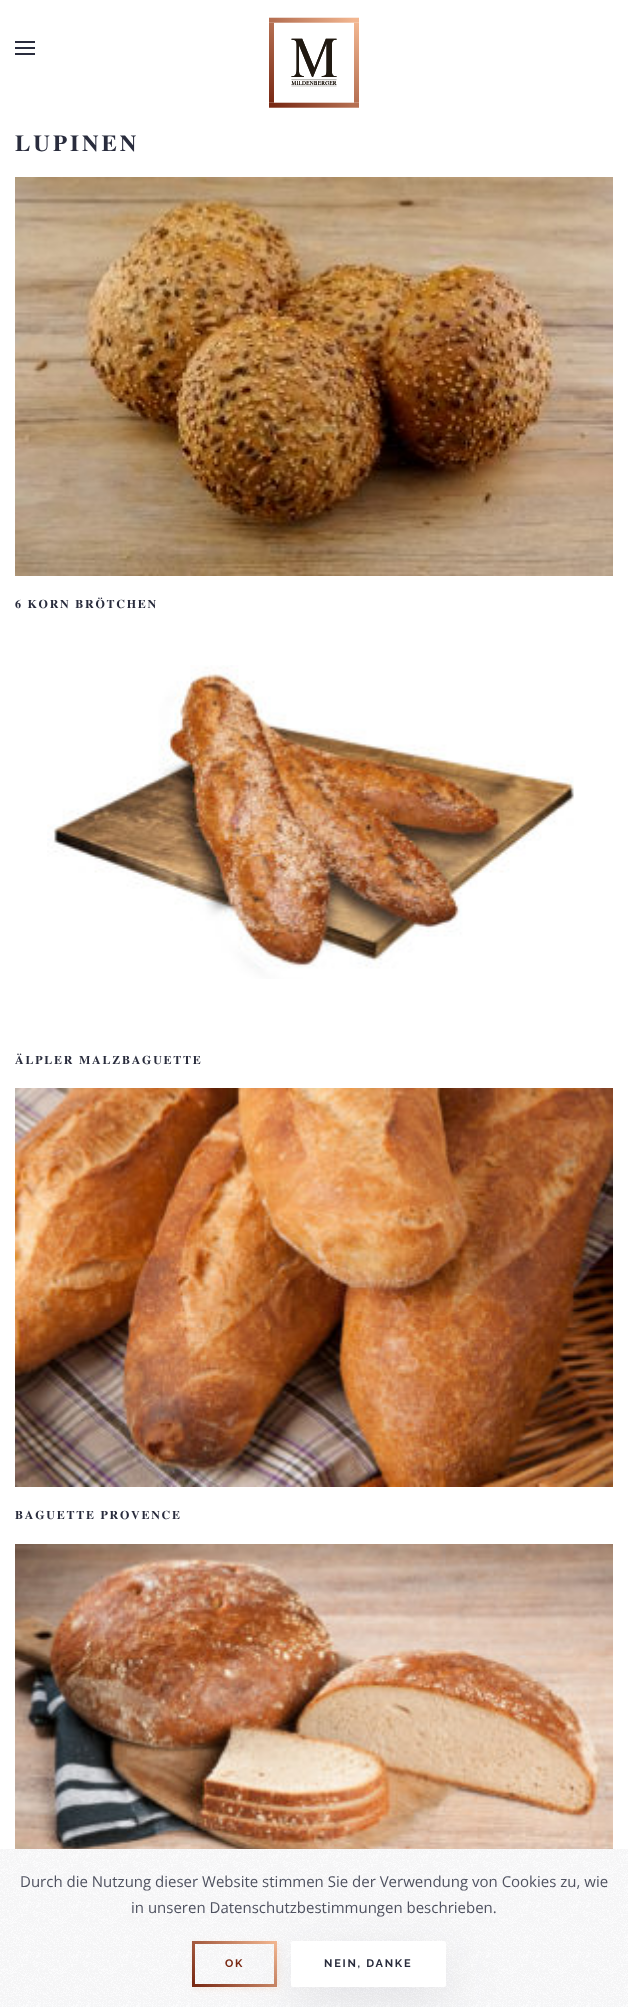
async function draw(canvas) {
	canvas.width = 628;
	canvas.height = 2007;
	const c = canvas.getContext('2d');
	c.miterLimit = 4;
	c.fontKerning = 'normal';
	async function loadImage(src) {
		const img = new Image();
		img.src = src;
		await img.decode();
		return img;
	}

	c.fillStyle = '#fff';
	c.fillRect(0, 0, 628, 2007);
	for (const [x, y, w, h, color] of [
		[15, 41, 20, 2, '#292c3d'],
		[15, 47, 20, 2, '#292c3d'],
		[15, 53, 20, 2, '#292c3d'],
	]) {
		c.fillStyle = color;
		c.fillRect(x, y, w, h);
	}
	c.drawImage(await loadImage('img1.png'), 269, 17, 90, 91);
	c.drawImage(await loadImage('img2.png'), 291, 38, 46, 49);
	c.letterSpacing = '3px';
	c.font = 'bold 23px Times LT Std';
	c.fillText('LUPINEN', 15, 151);
	c.drawImage(await loadImage('img3.png'), 15, 177, 598, 399);
	c.letterSpacing = '1.75px';
	c.font = 'bold 12px Times LT Std';
	c.fillText('6 KORN BRÖTCHEN', 15, 608);
	c.drawImage(await loadImage('img4.png'), 47, 665, 527, 314);
	c.fillText('ÄLPLER MALZBAGUETTE', 15, 1064);
	c.drawImage(await loadImage('img5.png'), 15, 1088, 598, 399);
	c.fillText('BAGUETTE PROVENCE', 15, 1519);
	c.drawImage(await loadImage('img6.png'), 15, 1544, 598, 305);
	c.fillStyle = '#fcfcfd';
	c.fillRect(0, 1849, 628, 158);
	c.drawImage(await loadImage('img7.png'), 0, 1849, 628, 158);
	c.letterSpacing = '0px';
	c.font = '15px Open Sans';
	c.fillStyle = '#4f5260';
	c.fillText('Durch die Nutzung dieser Website stimmen Sie der Verwendung von Cookies zu, wie', 20, 1887);
	c.fillText('in unseren Datenschutzbestimmungen beschrieben.', 131, 1913);
	c.save();
	c.beginPath();
	c.moveTo(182, 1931);
	c.lineTo(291, 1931);
	c.lineTo(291, 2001);
	c.lineTo(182, 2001);
	c.closePath();
	c.moveTo(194, 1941);
	c.lineTo(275, 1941);
	c.bezierCurveTo(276, 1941, 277, 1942, 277, 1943);
	c.lineTo(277, 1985);
	c.bezierCurveTo(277, 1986, 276, 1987, 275, 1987);
	c.lineTo(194, 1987);
	c.bezierCurveTo(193, 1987, 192, 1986, 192, 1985);
	c.lineTo(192, 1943);
	c.bezierCurveTo(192, 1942, 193, 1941, 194, 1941);
	c.closePath();
	c.clip('evenodd');
	c.fillStyle = '#f3b79133';
	c.filter = 'blur(3.5px)';
	c.beginPath();
	c.roundRect(194, 1943, 85, 46, 2);
	c.fill();
	c.filter = 'none';
	c.restore();
	c.drawImage(await loadImage('img8.png'), 192, 1941, 85, 46);
	c.letterSpacing = '1.75px';
	c.font = '100 11px Raleway';
	c.fillStyle = '#782813';
	c.fillText('OK', 225, 1967);
	c.fillStyle = '#292c3d1a';
	c.filter = 'blur(25px)';
	c.beginPath();
	c.roundRect(293, 1956, 155, 46, 2);
	c.fill();
	c.filter = 'none';
	c.fillStyle = '#fff';
	c.beginPath();
	c.roundRect(291, 1941, 155, 46, 2);
	c.fill();
	c.fillStyle = '#292c3d';
	c.fillText('NEIN, DANKE', 324, 1967);
}

draw(document.querySelector('canvas'));
